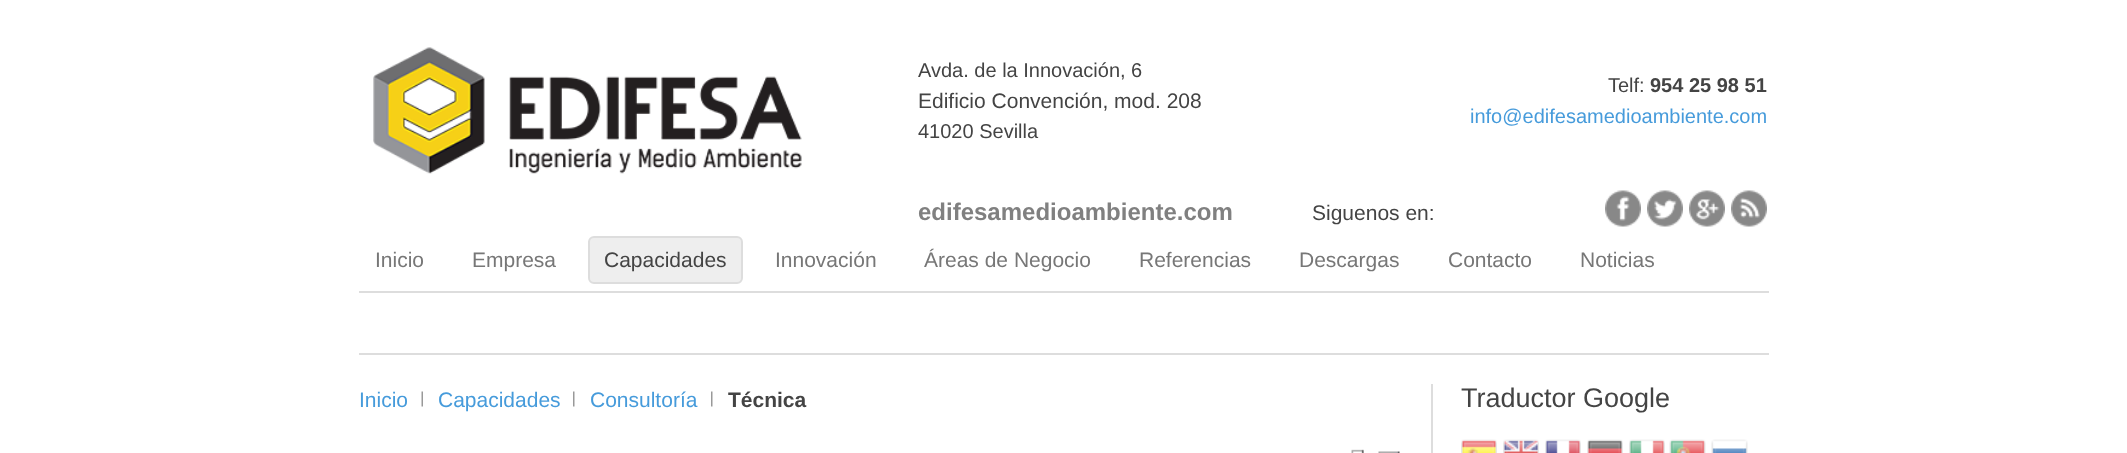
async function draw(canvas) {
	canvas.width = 2127;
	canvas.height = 453;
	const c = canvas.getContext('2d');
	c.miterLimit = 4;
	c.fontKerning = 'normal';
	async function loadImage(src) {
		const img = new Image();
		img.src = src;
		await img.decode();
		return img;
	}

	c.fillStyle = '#fff';
	c.fillRect(0, 0, 2127, 453);
	c.fillStyle = '#ddd';
	c.fillRect(359, 291, 1410, 2);
	c.drawImage(await loadImage('img1.png'), 373, 47, 429, 127);
	c.font = '20px Liberation Sans';
	c.fillStyle = '#444';
	c.fillText('Avda. de la Innovación, 6', 918, 77);
	c.font = '21px Liberation Sans';
	c.fillText('Edificio Convención, mod. 208', 918, 108);
	c.font = '20px Liberation Sans';
	c.fillText('41020 Sevilla', 918, 138);
	c.fillText('Telf:', 1608, 92);
	c.font = 'bold 20px Liberation Sans';
	c.fillText('954 25 98 51', 1650, 92);
	c.font = '20px Liberation Sans';
	c.fillStyle = '#469bdb';
	c.fillText('info@edifesamedioambiente.com', 1470, 123);
	c.font = 'bold 24px Liberation Sans';
	c.fillStyle = '#808080';
	c.fillText('edifesamedioambiente.com', 918, 220);
	c.font = '21px Liberation Sans';
	c.fillStyle = '#444';
	c.fillText('Siguenos en:', 1312, 220);
	c.drawImage(await loadImage('img2.png'), 1605, 190, 36, 37);
	c.drawImage(await loadImage('img3.png'), 1647, 190, 36, 37);
	c.drawImage(await loadImage('img4.png'), 1689, 190, 36, 37);
	c.drawImage(await loadImage('img5.png'), 1731, 190, 36, 37);
	c.fillStyle = '#777';
	c.fillText('Inicio', 375, 267);
	c.fillText('Empresa', 472, 267);
	c.fillStyle = '#eee';
	c.beginPath();
	c.roundRect(589, 237, 153, 46, 5);
	c.fill();
	c.strokeStyle = '#ddd';
	c.lineWidth = 2;
	c.stroke();
	c.fillStyle = '#444';
	c.fillText('Capacidades', 604, 267);
	c.fillStyle = '#777';
	for (const [text, x, y] of [
		['Innovación', 775, 267],
		['Áreas de Negocio', 924, 267],
		['Referencias', 1139, 267],
		['Descargas', 1299, 267],
		['Contacto', 1448, 267],
		['Noticias', 1580, 267],
	]) {
		c.fillText(text, x, y);
	}
	c.fillStyle = '#ddd';
	c.fillRect(359, 353, 1410, 2);
	c.drawImage(await loadImage('img6.png'), 421, 391, 2, 16);
	c.fillStyle = '#469bdb';
	c.fillText('Inicio', 359, 407);
	c.drawImage(await loadImage('img7.png'), 573, 391, 2, 16);
	c.fillText('Capacidades', 438, 407);
	c.drawImage(await loadImage('img7.png'), 711, 391, 2, 16);
	c.fillText('Consultoría', 590, 407);
	c.font = 'bold 21px Liberation Sans';
	c.fillStyle = '#444';
	c.fillText('Técnica', 728, 407);
	c.drawImage(await loadImage('img8.png'), 1351, 449, 13, 4);
	c.drawImage(await loadImage('img9.png'), 1378, 451, 22, 2);
	c.fillStyle = '#ddd';
	c.fillRect(1431, 384, 2, 69);
	c.font = '27px Liberation Sans';
	c.fillStyle = '#444';
	c.fillText('Traductor Google', 1461, 407);
	c.drawImage(await loadImage('img10.png'), 1461, 439, 36, 14);
	c.drawImage(await loadImage('img11.png'), 1503, 439, 36, 14);
	c.drawImage(await loadImage('img12.png'), 1545, 439, 36, 14);
	c.drawImage(await loadImage('img13.png'), 1587, 439, 36, 14);
	c.drawImage(await loadImage('img14.png'), 1629, 439, 36, 14);
	c.drawImage(await loadImage('img15.png'), 1669, 439, 37, 14);
	c.drawImage(await loadImage('img16.png'), 1711, 439, 37, 14);
}

draw(document.querySelector('canvas'));
